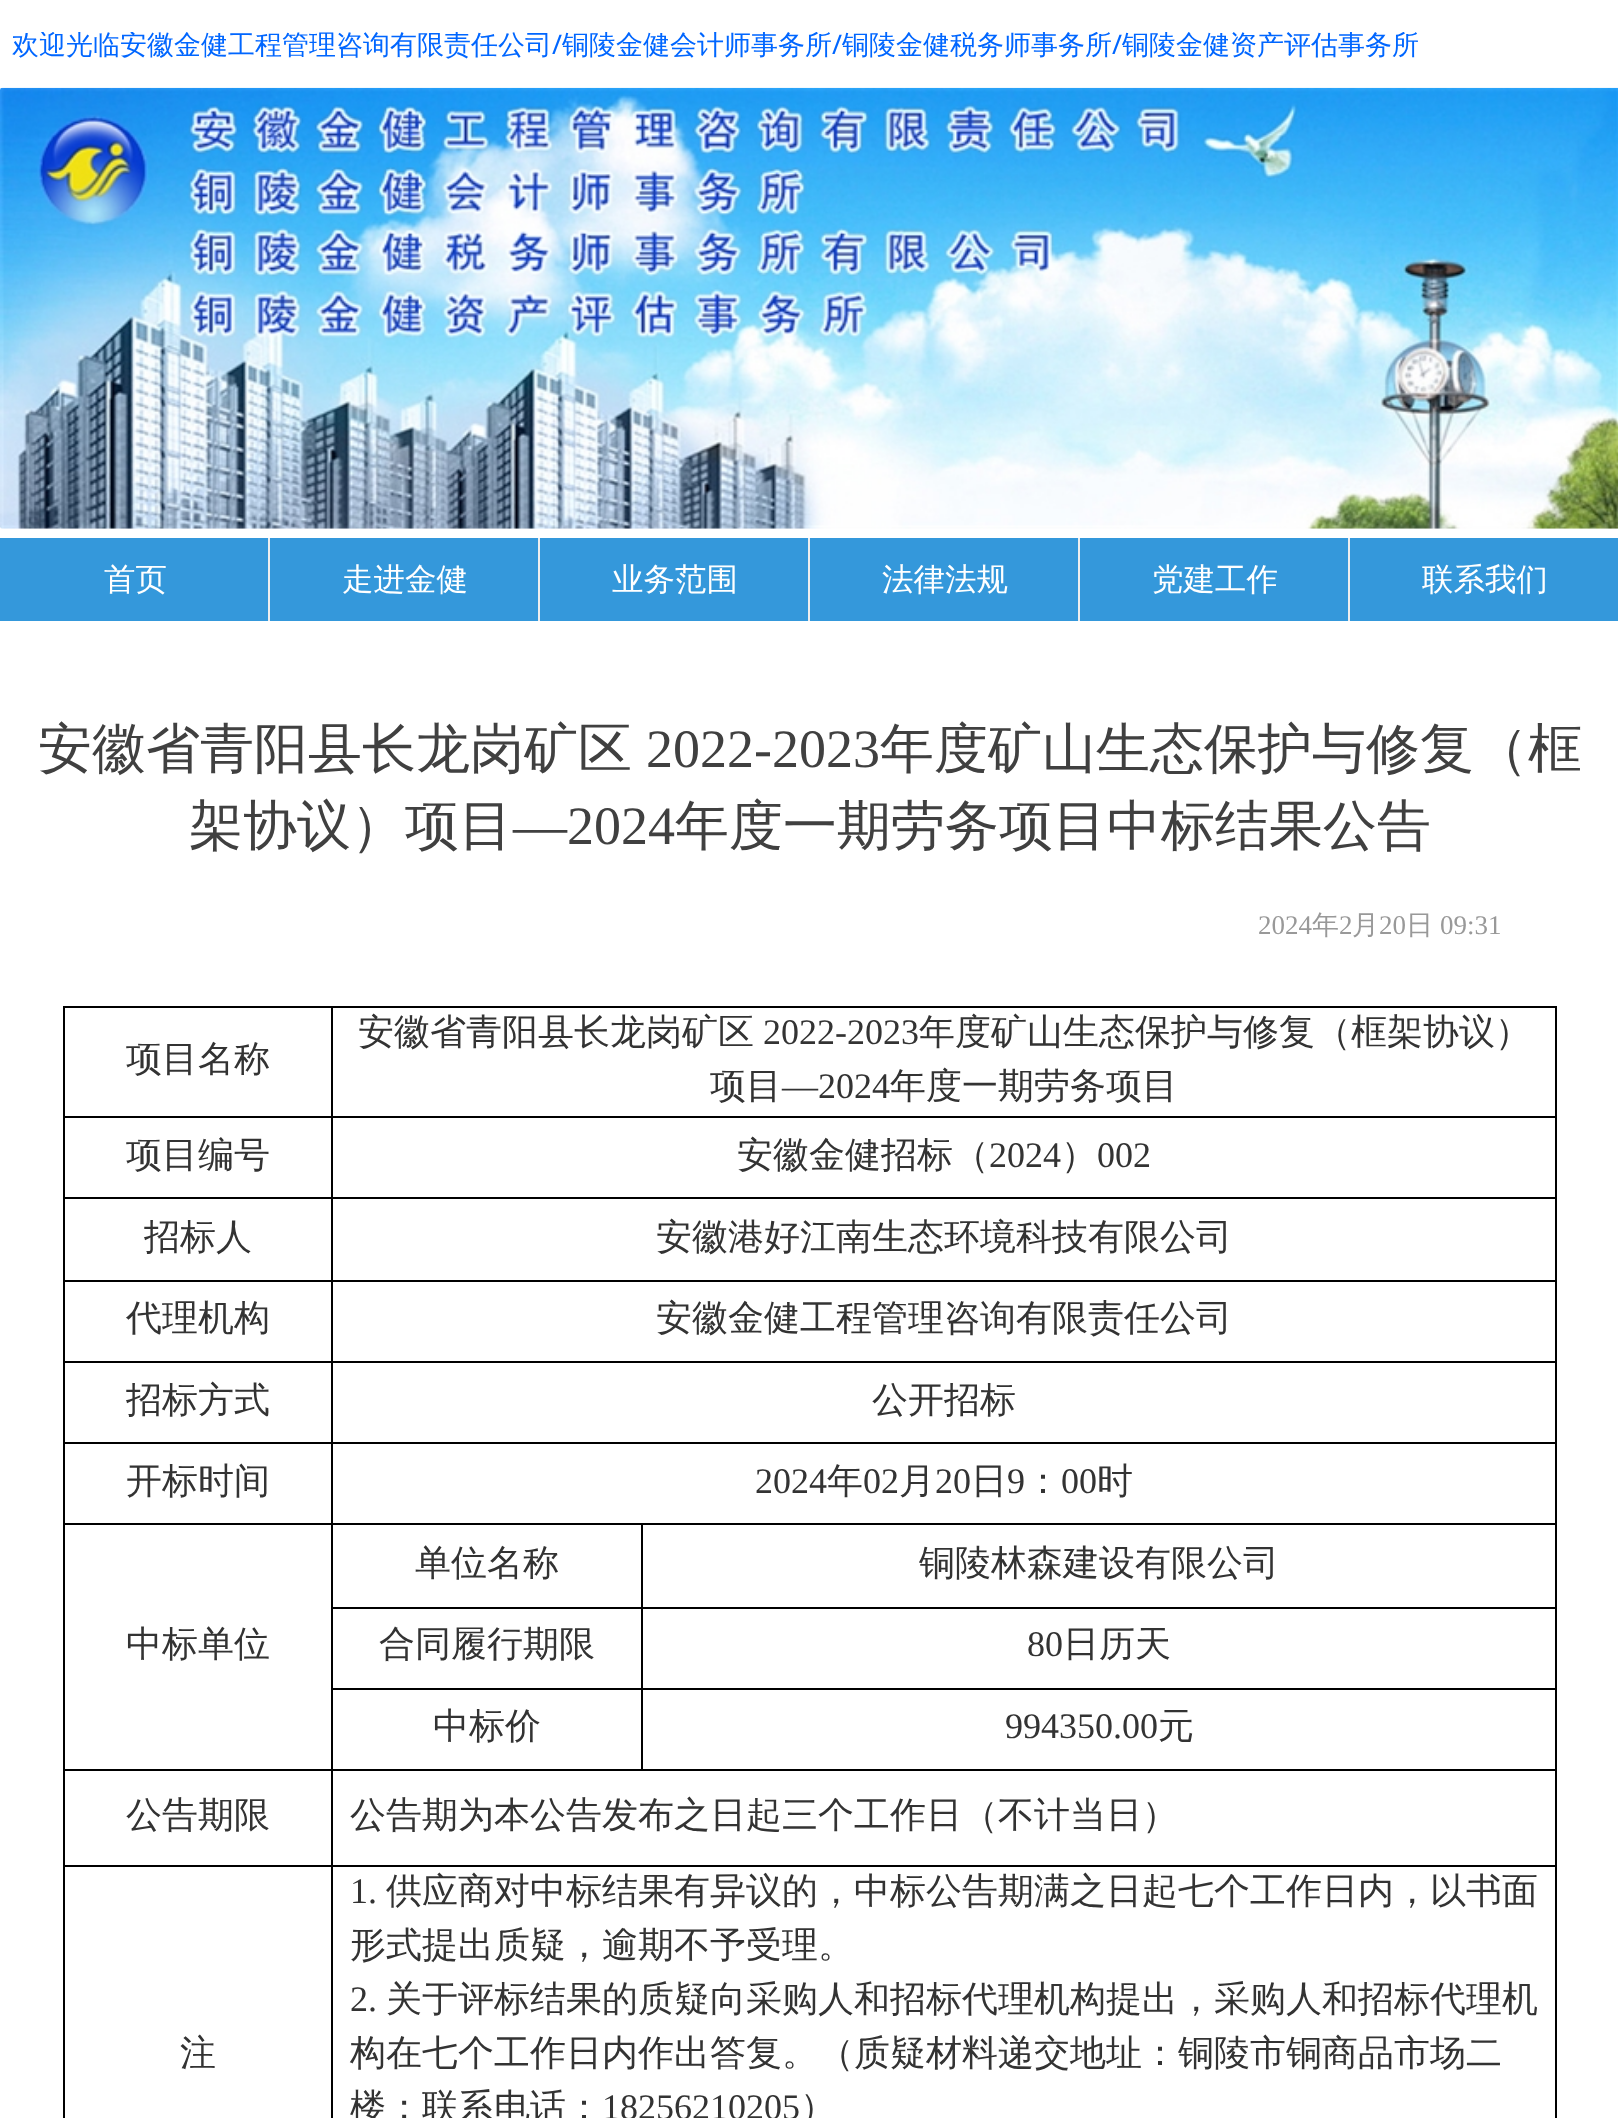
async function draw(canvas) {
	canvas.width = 1618;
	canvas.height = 2118;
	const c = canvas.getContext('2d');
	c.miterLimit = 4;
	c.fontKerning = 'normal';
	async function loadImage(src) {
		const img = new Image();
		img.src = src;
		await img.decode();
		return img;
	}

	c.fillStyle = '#fff';
	c.fillRect(0, 0, 1618, 2118);
	c.save();
	c.beginPath();
	c.rect(5, 32, 1469, 40);
	c.clip();
	c.font = '500 27px WenQuanYi Zen Hei';
	c.fillStyle = '#06f';
	c.fillText('欢迎光临安徽金健工程管理咨询有限责任公司', 12, 54);
	c.restore();
	c.font = '27px Noto Sans';
	c.fillStyle = '#06f';
	c.fillText('/', 552, 54);
	c.save();
	c.beginPath();
	c.rect(5, 32, 1469, 40);
	c.clip();
	c.font = '500 27px WenQuanYi Zen Hei';
	c.fillText('铜陵金健会计师事务所', 562, 54);
	c.restore();
	c.fillText('/', 832, 54);
	c.save();
	c.beginPath();
	c.rect(5, 32, 1469, 40);
	c.clip();
	c.font = '500 27px WenQuanYi Zen Hei';
	c.fillText('铜陵金健税务师事务所', 842, 54);
	c.restore();
	c.fillText('/', 1112, 54);
	c.save();
	c.beginPath();
	c.rect(5, 32, 1469, 40);
	c.clip();
	c.font = '500 27px WenQuanYi Zen Hei';
	c.fillText('铜陵金健资产评估事务所', 1122, 54);
	c.restore();
	c.drawImage(await loadImage('img1.png'), 0, 87, 1618, 442);
	c.fillStyle = '#3498db';
	c.fillRect(0, 538, 268, 83);
	c.font = '500 31.5px WenQuanYi Zen Hei';
	c.fillStyle = '#fff';
	c.fillText('首页', 104, 590);
	c.fillStyle = '#3498db';
	c.fillRect(270, 538, 268, 83);
	c.fillStyle = '#eee';
	c.fillRect(268, 538, 2, 83);
	c.fillStyle = '#fff';
	c.fillText('走进金健', 342, 590);
	c.fillStyle = '#3498db';
	c.fillRect(540, 538, 268, 83);
	c.fillStyle = '#eee';
	c.fillRect(538, 538, 2, 83);
	c.fillStyle = '#fff';
	c.fillText('业务范围', 612, 590);
	c.fillStyle = '#3498db';
	c.fillRect(810, 538, 268, 83);
	c.fillStyle = '#eee';
	c.fillRect(808, 538, 2, 83);
	c.fillStyle = '#fff';
	c.fillText('法律法规', 882, 590);
	c.fillStyle = '#3498db';
	c.fillRect(1080, 538, 268, 83);
	c.fillStyle = '#eee';
	c.fillRect(1078, 538, 2, 83);
	c.fillStyle = '#fff';
	c.fillText('党建工作', 1152, 590);
	c.fillStyle = '#3498db';
	c.fillRect(1350, 538, 268, 83);
	c.fillStyle = '#eee';
	c.fillRect(1348, 538, 2, 83);
	c.fillStyle = '#fff';
	c.fillText('联系我们', 1422, 590);
	c.font = '500 54px WenQuanYi Zen Hei';
	c.fillStyle = '#404040';
	c.fillText('安徽省青阳县长龙岗矿区', 38, 767);
	c.font = '54px Liberation Serif';
	c.fillText('2022-2023', 646, 767);
	c.font = '500 54px WenQuanYi Zen Hei';
	c.fillText('年度矿山生态保护与修复（框', 880, 767);
	c.fillText('架协议）项目', 189, 844);
	c.font = '54px Liberation Serif';
	c.fillText('—2024', 513, 844);
	c.font = '500 54px WenQuanYi Zen Hei';
	c.fillText('年度一期劳务项目中标结果公告', 675, 844);
	c.font = '27px Liberation Serif';
	c.fillStyle = '#999';
	c.fillText('2024', 1258, 934);
	c.font = '500 27px WenQuanYi Zen Hei';
	c.fillText('年', 1312, 934);
	c.font = '27px Liberation Serif';
	c.fillText('2', 1339, 934);
	c.font = '500 27px WenQuanYi Zen Hei';
	c.fillText('月', 1352, 934);
	c.font = '27px Liberation Serif';
	c.fillText('20', 1379, 934);
	c.font = '500 27px WenQuanYi Zen Hei';
	c.fillText('日', 1406, 934);
	c.font = '27px Liberation Serif';
	c.fillText('09:31', 1440, 934);
	for (const [x, y, w, h, color] of [
		[63, 1006, 1494, 2, '#000'],
		[1555, 1006, 2, 1112, '#000'],
		[63, 1006, 2, 1112, '#000'],
		[641, 1769, 916, 2, '#000'],
		[641, 1688, 2, 83, '#000'],
		[641, 1688, 916, 2, '#000'],
		[641, 1607, 2, 83, '#000'],
		[641, 1607, 916, 2, '#000'],
		[641, 1523, 2, 86, '#000'],
		[331, 1607, 313, 2, '#000'],
		[331, 1688, 313, 2, '#000'],
		[331, 1865, 2, 253, '#000'],
		[331, 1865, 1226, 2, '#000'],
		[331, 1769, 2, 99, '#000'],
		[331, 1769, 313, 2, '#000'],
		[331, 1523, 2, 248, '#000'],
		[331, 1523, 1226, 2, '#000'],
		[331, 1442, 2, 84, '#000'],
		[331, 1442, 1226, 2, '#000'],
		[331, 1361, 2, 84, '#000'],
		[331, 1361, 1226, 2, '#000'],
		[331, 1280, 2, 84, '#000'],
		[331, 1280, 1226, 2, '#000'],
		[331, 1197, 2, 86, '#000'],
		[331, 1197, 1226, 2, '#000'],
		[331, 1116, 2, 83, '#000'],
		[331, 1116, 1226, 2, '#000'],
		[331, 1006, 2, 112, '#000'],
		[63, 1116, 270, 2, '#000'],
	]) {
		c.fillStyle = color;
		c.fillRect(x, y, w, h);
	}
	c.font = '500 36px WenQuanYi Zen Hei';
	c.fillStyle = '#333';
	c.fillText('项目名称', 126, 1071);
	c.fillText('安徽省青阳县长龙岗矿区', 358, 1044);
	c.font = '36px Liberation Serif';
	c.fillText('2022-2023', 763, 1044);
	c.font = '500 36px WenQuanYi Zen Hei';
	c.fillText('年度矿山生态保护与修复（框架协议）', 919, 1044);
	c.fillText('项目', 710, 1098);
	c.font = '36px Liberation Serif';
	c.fillText('—2024', 782, 1098);
	c.font = '500 36px WenQuanYi Zen Hei';
	c.fillText('年度一期劳务项目', 890, 1098);
	c.fillStyle = '#000';
	c.fillRect(63, 1197, 270, 2);
	c.fillStyle = '#333';
	c.fillText('项目编号', 126, 1167);
	c.fillText('安徽金健招标（', 737, 1167);
	c.font = '36px Liberation Serif';
	c.fillText('2024', 989, 1167);
	c.font = '500 36px WenQuanYi Zen Hei';
	c.fillText('）', 1061, 1167);
	c.font = '36px Liberation Serif';
	c.fillText('002', 1097, 1167);
	c.fillStyle = '#000';
	c.fillRect(63, 1280, 270, 2);
	c.font = '500 36px WenQuanYi Zen Hei';
	c.fillStyle = '#333';
	c.fillText('招标人', 144, 1249);
	c.fillText('安徽港好江南生态环境科技有限公司', 656, 1249);
	c.fillStyle = '#000';
	c.fillRect(63, 1361, 270, 2);
	c.fillStyle = '#333';
	c.fillText('代理机构', 126, 1330);
	c.fillText('安徽金健工程管理咨询有限责任公司', 656, 1330);
	c.fillStyle = '#000';
	c.fillRect(63, 1442, 270, 2);
	c.fillStyle = '#333';
	c.fillText('招标方式', 126, 1412);
	c.fillText('公开招标', 872, 1412);
	c.fillStyle = '#000';
	c.fillRect(63, 1523, 270, 2);
	c.fillStyle = '#333';
	c.fillText('开标时间', 126, 1493);
	c.font = '36px Liberation Serif';
	c.fillText('2024', 755, 1493);
	c.font = '500 36px WenQuanYi Zen Hei';
	c.fillText('年', 827, 1493);
	c.font = '36px Liberation Serif';
	c.fillText('02', 863, 1493);
	c.font = '500 36px WenQuanYi Zen Hei';
	c.fillText('月', 899, 1493);
	c.font = '36px Liberation Serif';
	c.fillText('20', 935, 1493);
	c.font = '500 36px WenQuanYi Zen Hei';
	c.fillText('日', 971, 1493);
	c.font = '36px Liberation Serif';
	c.fillText('9', 1007, 1493);
	c.font = '500 36px WenQuanYi Zen Hei';
	c.fillText('：', 1025, 1493);
	c.font = '36px Liberation Serif';
	c.fillText('00', 1061, 1493);
	c.font = '500 36px WenQuanYi Zen Hei';
	for (const [text, x, y] of [
		['时', 1097, 1493],
		['单位名称', 415, 1575],
		['铜陵林森建设有限公司', 919, 1575],
	]) {
		c.fillText(text, x, y);
	}
	c.fillStyle = '#000';
	c.fillRect(63, 1769, 270, 2);
	c.fillStyle = '#333';
	c.fillText('中标单位', 126, 1656);
	c.fillText('合同履行期限', 379, 1656);
	c.font = '36px Liberation Serif';
	c.fillText('80', 1027, 1656);
	c.font = '500 36px WenQuanYi Zen Hei';
	c.fillText('日历天', 1063, 1656);
	c.fillText('中标价', 433, 1738);
	c.font = '36px Liberation Serif';
	c.fillText('994350.00', 1005, 1738);
	c.font = '500 36px WenQuanYi Zen Hei';
	c.fillText('元', 1158, 1738);
	c.fillStyle = '#000';
	c.fillRect(63, 1865, 270, 2);
	c.fillStyle = '#333';
	for (const [text, x, y] of [
		['公告期限', 126, 1827],
		['公告期为本公告发布之日起三个工作日（不计当日）', 350, 1827],
		['注', 180, 2065],
	]) {
		c.fillText(text, x, y);
	}
	c.font = '36px Liberation Serif';
	c.fillText('1.', 350, 1903);
	c.font = '500 36px WenQuanYi Zen Hei';
	c.fillText('供应商对中标结果有异议的，中标公告期满之日起七个工作日内，以书面', 386, 1903);
	c.fillText('形式提出质疑，逾期不予受理。', 350, 1957);
	c.font = '36px Liberation Serif';
	c.fillText('2.', 350, 2011);
	c.font = '500 36px WenQuanYi Zen Hei';
	for (const [text, x, y] of [
		['关于评标结果的质疑向采购人和招标代理机构提出，采购人和招标代理机', 386, 2011],
		['构在七个工作日内作出答复。（质疑材料递交地址：铜陵市铜商品市场二', 350, 2065],
		['楼；联系电话：', 350, 2119],
	]) {
		c.fillText(text, x, y);
	}
	c.font = '36px Liberation Serif';
	c.fillText('18256210205', 602, 2119);
	c.font = '500 36px WenQuanYi Zen Hei';
	c.fillText('）', 800, 2119);
}

draw(document.querySelector('canvas'));
